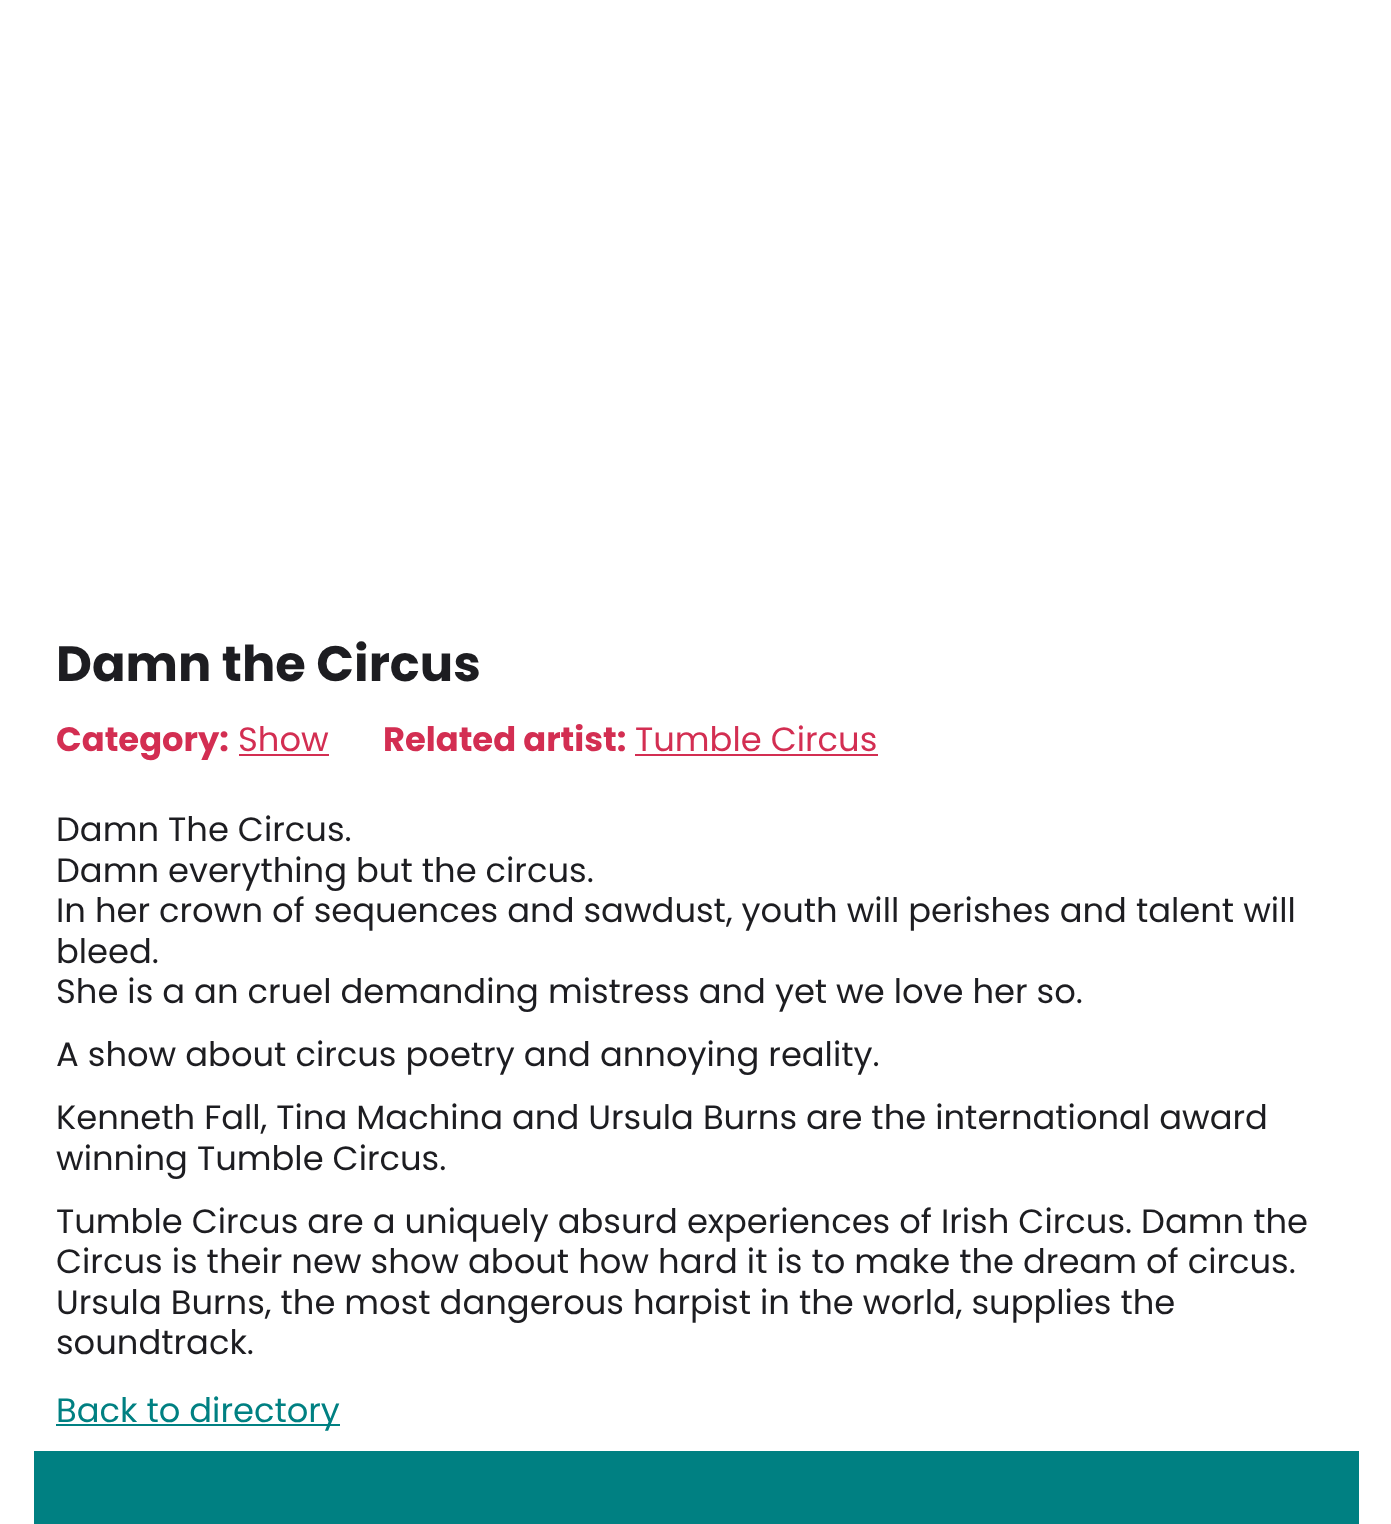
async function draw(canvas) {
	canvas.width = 1391;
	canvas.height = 1524;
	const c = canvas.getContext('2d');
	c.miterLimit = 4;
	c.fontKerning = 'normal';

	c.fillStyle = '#fff';
	c.fillRect(0, 0, 1391, 1524);
	c.font = 'bold 49.5px Poppins';
	c.fillStyle = '#1d1d21';
	c.fillText('Damn the Circus', 56, 681);
	c.font = 'bold 33.75px Poppins';
	c.fillStyle = '#d32e52';
	c.fillText('Category:', 56, 751);
	c.font = '33.75px Poppins';
	c.fillText('Show', 238, 751);
	c.fillRect(239, 754, 90, 2);
	c.font = 'bold 33.75px Poppins';
	c.fillText('Related artist:', 383, 751);
	c.font = '33.75px Poppins';
	c.fillText('Tumble Circus', 635, 751);
	c.fillRect(635, 754, 243, 2);
	c.fillStyle = '#1d1d21';
	for (const [text, x, y] of [
		['Damn The Circus.', 56, 841],
		['Damn everything but the circus.', 56, 882],
		['In her crown of sequences and sawdust, youth will perishes and talent will', 56, 922],
		['bleed.', 56, 963],
		['She is a an cruel demanding mistress and yet we love her so.', 56, 1003],
		['A show about circus poetry and annoying reality.', 56, 1066],
		['Kenneth Fall, Tina Machina and Ursula Burns are the international award', 56, 1129],
		['winning Tumble Circus.', 56, 1170],
		['Tumble Circus are a uniquely absurd experiences of Irish Circus. Damn the', 56, 1233],
		['Circus is their new show about how hard it is to make the dream of circus.', 56, 1273],
		['Ursula Burns, the most dangerous harpist in the world, supplies the', 56, 1314],
		['soundtrack.', 56, 1354],
	]) {
		c.fillText(text, x, y);
	}
	c.fillStyle = '#008082';
	c.fillRect(56, 1424, 284, 2);
	c.fillText('Back to directory', 56, 1422);
	c.fillRect(34, 1451, 1325, 73);
}

draw(document.querySelector('canvas'));
